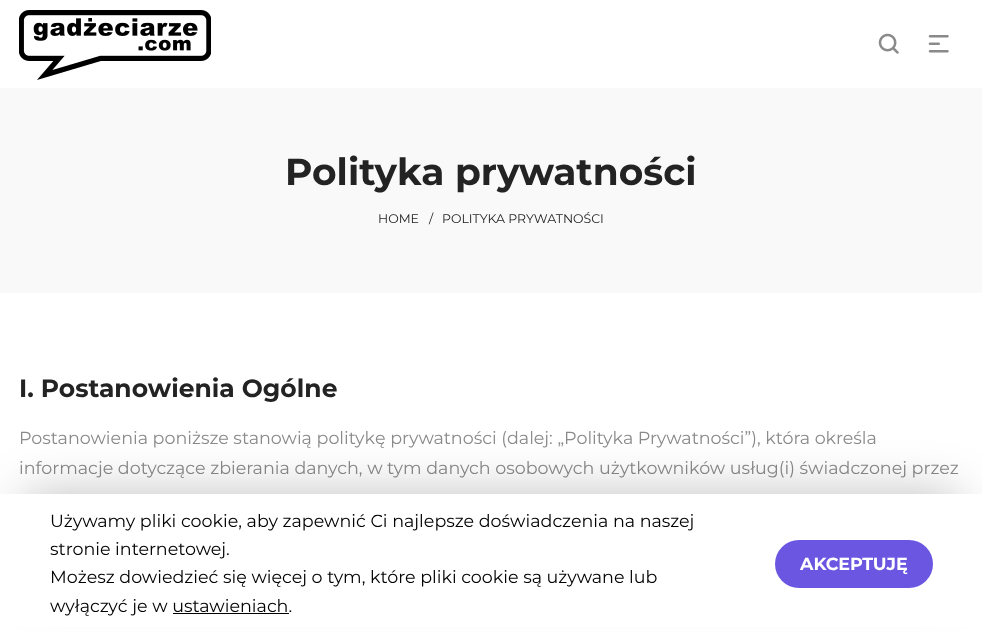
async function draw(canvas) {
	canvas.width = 982;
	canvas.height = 632;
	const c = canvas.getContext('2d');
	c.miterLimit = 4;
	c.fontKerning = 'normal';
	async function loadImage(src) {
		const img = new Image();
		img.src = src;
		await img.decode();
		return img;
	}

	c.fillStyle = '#fff';
	c.fillRect(0, 0, 982, 632);
	c.drawImage(await loadImage('img1.png'), 19, 10, 192, 70);
	c.drawImage(await loadImage('img2.png'), 878, 33, 21, 21);
	c.drawImage(await loadImage('img3.png'), 928, 35, 21, 18);
	c.fillStyle = '#f9f9f9';
	c.fillRect(0, 88, 982, 205);
	c.font = 'bold 37.5px Montserrat';
	c.fillStyle = '#232324';
	c.fillText('Polityka prywatności', 285, 185);
	c.font = '12.5px Montserrat';
	for (const [text, x, y] of [
		['HOME', 378, 223],
		['/', 429, 223],
		['POLITYKA PRYWATNOŚCI', 442, 223],
	]) {
		c.fillText(text, x, y);
	}
	c.font = 'bold 25px Montserrat';
	c.fillText('I. Postanowienia Ogólne', 19, 397);
	c.font = '17.5px Montserrat';
	c.fillStyle = '#8a8a8a';
	c.fillText('Postanowienia poniższe stanowią politykę prywatności (dalej: „Polityka Prywatności”), która określa', 19, 444);
	c.fillText('informacje dotyczące zbierania danych, w tym danych osobowych użytkowników usług(i) świadczonej przez', 19, 474);
	c.fillStyle = '#00000040';
	c.filter = 'blur(25px)';
	c.beginPath();
	c.rect(25, 494, 933, 89);
	c.fill();
	c.filter = 'none';
	c.fillStyle = '#fff';
	c.fillRect(0, 494, 982, 133);
	c.fillStyle = '#000';
	for (const [text, x, y] of [
		['Używamy pliki cookie, aby zapewnić Ci najlepsze doświadczenia na naszej', 50, 527],
		['stronie internetowej.', 50, 555],
		['Możesz dowiedzieć się więcej o tym, które pliki cookie są używane lub', 50, 583],
		['wyłączyć je w ustawieniach.', 50, 612],
	]) {
		c.fillText(text, x, y);
	}
	c.fillRect(173, 613, 116, 1);
	c.fillStyle = '#6b56e2';
	c.beginPath();
	c.roundRect(775, 540, 158, 48, 24);
	c.fill();
	c.font = 'bold 17.5px Montserrat';
	c.fillStyle = '#fff';
	c.fillText('AKCEPTUJĘ', 800, 570);
}

draw(document.querySelector('canvas'));
